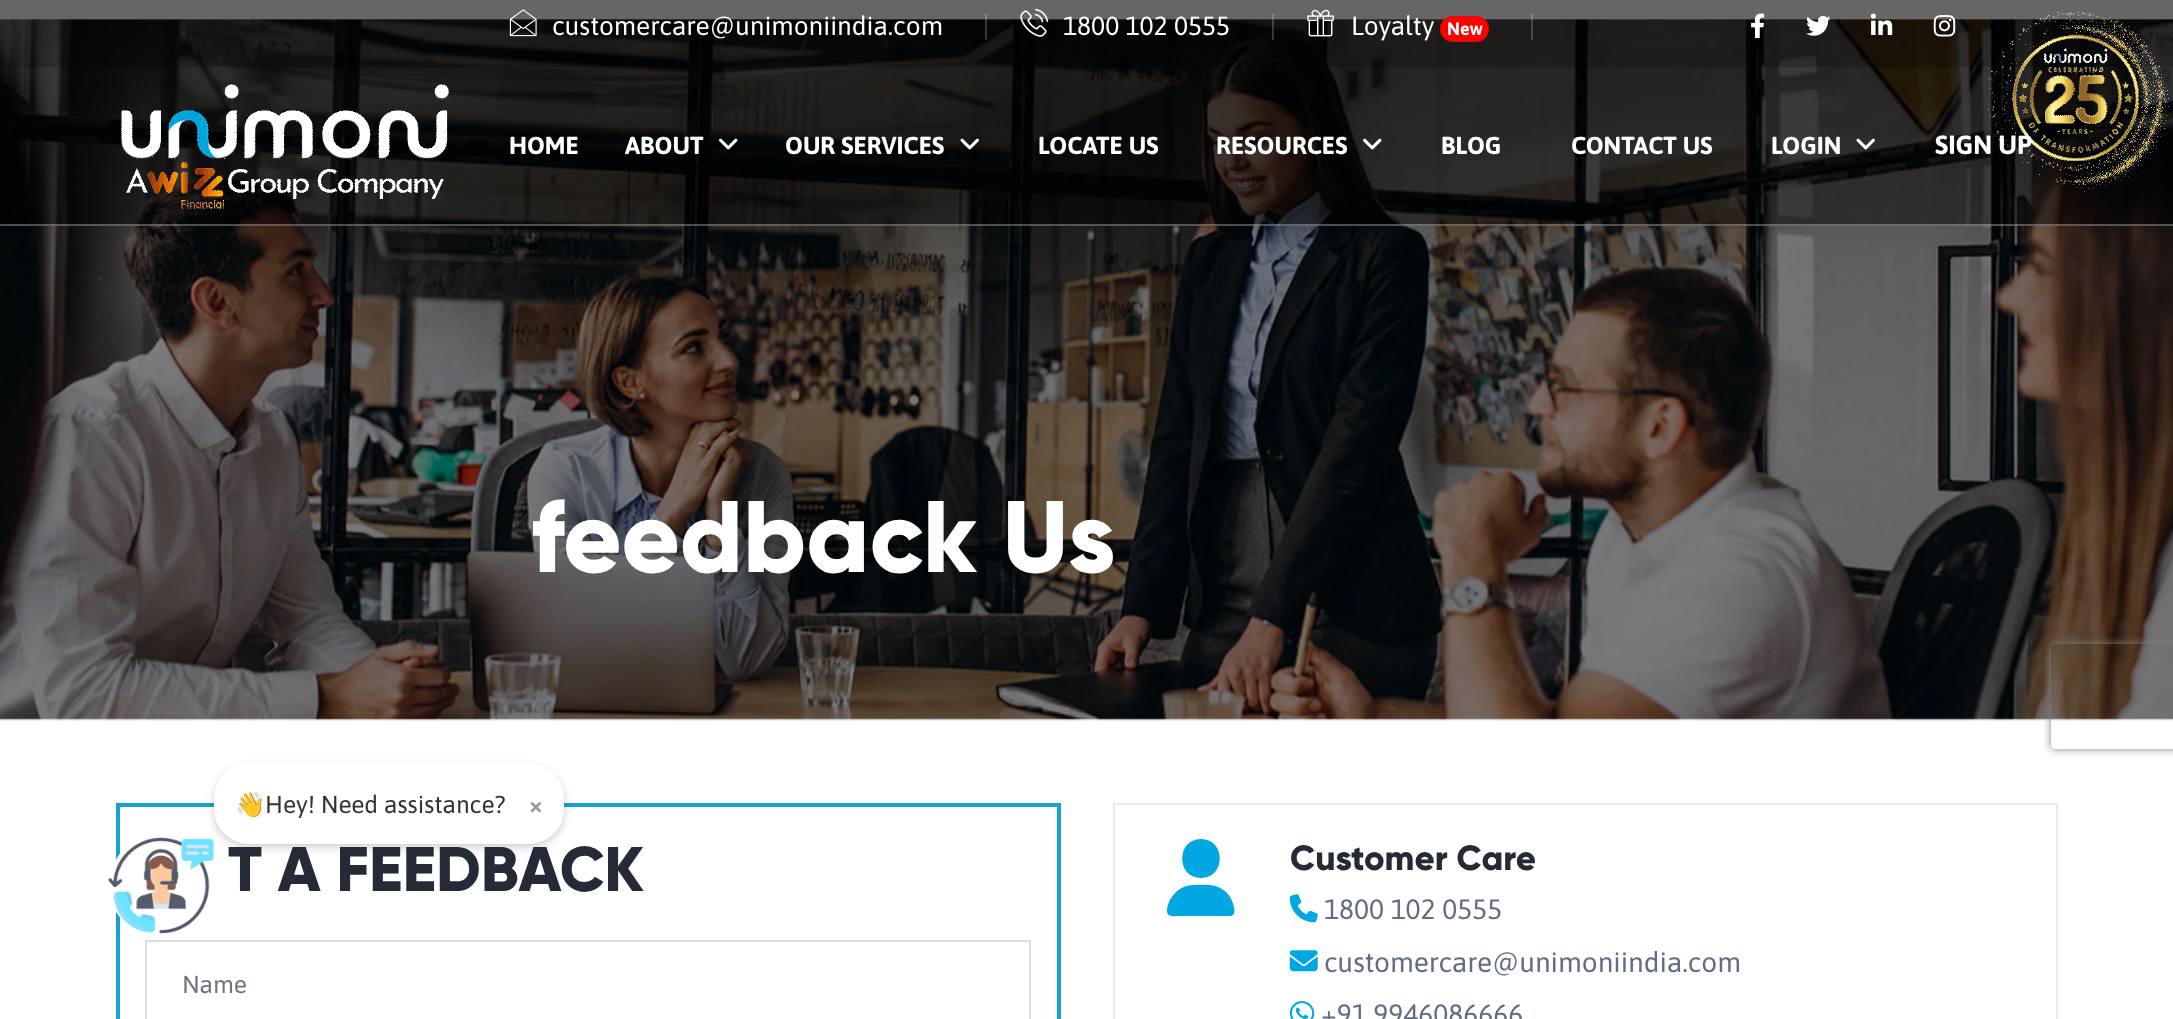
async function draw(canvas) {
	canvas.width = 2173;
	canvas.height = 1019;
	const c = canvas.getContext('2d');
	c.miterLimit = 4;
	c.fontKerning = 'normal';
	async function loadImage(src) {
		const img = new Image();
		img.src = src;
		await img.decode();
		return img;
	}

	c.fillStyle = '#fff';
	c.fillRect(0, 0, 2173, 1019);
	c.drawImage(await loadImage('img14.png'), 0, 19, 2173, 702);
	c.fillStyle = '#00000099';
	c.fillRect(0, 0, 2173, 67);
	c.drawImage(await loadImage('img1.png'), 509, 9, 28, 28);
	c.font = '26.25px Asap';
	c.fillStyle = '#fff';
	c.fillText('customercare@unimoniindia.com', 552, 35);
	c.fillStyle = '#ffffff33';
	c.fillRect(985, 14, 2, 26);
	c.drawImage(await loadImage('img2.png'), 1020, 8, 29, 29);
	c.fillStyle = '#fff';
	c.fillText('1800 102 0555', 1063, 35);
	c.fillStyle = '#ffffff33';
	c.fillRect(1272, 14, 2, 26);
	c.drawImage(await loadImage('img3.png'), 1307, 9, 27, 28);
	c.fillStyle = '#fff';
	c.fillText('Loyalty', 1351, 35);
	c.fillStyle = '#f00';
	c.beginPath();
	c.roundRect(1440, 16, 49, 26, 13);
	c.fill();
	c.font = 'bold 18px Asap';
	c.fillStyle = '#fff';
	c.fillText('New', 1447, 35);
	c.fillStyle = '#ffffff33';
	c.fillRect(1531, 14, 2, 26);
	c.drawImage(await loadImage('img4.png'), 1751, 13, 14, 26);
	c.drawImage(await loadImage('img5.png'), 1806, 15, 25, 21);
	c.drawImage(await loadImage('img6.png'), 1870, 13, 23, 22);
	c.drawImage(await loadImage('img7.png'), 1933, 15, 23, 22);
	c.fillStyle = '#0000007d';
	c.fillRect(0, 67, 2173, 159);
	c.drawImage(await loadImage('img8.png'), 1988, 11, 181, 181);
	c.fillStyle = '#ffffff4d';
	c.fillRect(0, 224, 2173, 2);
	c.drawImage(await loadImage('img9.png'), 121, 84, 328, 125);
	c.font = 'bold 24.5px Asap';
	c.fillStyle = '#fff';
	c.fillText('HOME', 509, 154);
	c.fillText('ABOUT', 625, 154);
	c.drawImage(await loadImage('img10.png'), 719, 138, 19, 12);
	c.fillText('OUR SERVICES', 785, 154);
	c.drawImage(await loadImage('img11.png'), 960, 138, 19, 12);
	c.fillText('LOCATE US', 1038, 154);
	c.fillText('RESOURCES', 1216, 154);
	c.drawImage(await loadImage('img12.png'), 1363, 138, 19, 12);
	for (const [text, x, y] of [
		['BLOG', 1441, 154],
		['CONTACT US', 1571, 154],
		['LOGIN', 1771, 154],
	]) {
		c.fillText(text, x, y);
	}
	c.drawImage(await loadImage('img13.png'), 1856, 138, 19, 12);
	c.font = 'bold 26.25px Asap';
	c.fillText('SIGN UP', 1935, 154);
	c.font = '101.5px gilroy';
	c.fillText('feedback Us', 531, 572);
	c.save();
	c.beginPath();
	c.moveTo(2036, 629);
	c.lineTo(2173, 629);
	c.lineTo(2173, 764);
	c.lineTo(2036, 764);
	c.closePath();
	c.moveTo(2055, 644);
	c.lineTo(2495, 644);
	c.bezierCurveTo(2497, 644, 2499, 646, 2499, 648);
	c.lineTo(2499, 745);
	c.bezierCurveTo(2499, 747, 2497, 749, 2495, 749);
	c.lineTo(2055, 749);
	c.bezierCurveTo(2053, 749, 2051, 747, 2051, 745);
	c.lineTo(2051, 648);
	c.bezierCurveTo(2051, 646, 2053, 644, 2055, 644);
	c.closePath();
	c.clip('evenodd');
	c.fillStyle = '#808080';
	c.filter = 'blur(4.5px)';
	c.beginPath();
	c.roundRect(2051, 644, 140, 105, 4);
	c.fill();
	c.filter = 'none';
	c.restore();
	c.strokeStyle = '#14a4ce';
	c.lineWidth = 4;
	c.strokeRect(118, 805, 941, 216);
	c.beginPath();
	c.arc(161.5, 885.5, 52.5, 0, 2 * Math.PI);
	c.fill();
	c.drawImage(await loadImage('img15.png'), 108, 837, 106, 97);
	c.fillStyle = '#00000033';
	c.filter = 'blur(4.5px)';
	c.beginPath();
	c.roundRect(214, 767, 350, 80, 35);
	c.fill();
	c.filter = 'none';
	c.fillStyle = '#fff';
	c.beginPath();
	c.roundRect(214, 763, 350, 81, 35);
	c.fill();
	c.beginPath();
	c.moveTo(227.5, 789);
	c.lineTo(227.5, 817);
	c.lineTo(213.5, 803);
	c.closePath();
	c.fill();
	c.font = '24.5px Noto Color Emoji';
	c.fillStyle = '#333';
	c.fillText('👋', 235, 813);
	c.font = '24.5px Asap';
	c.fillText('Hey! Need assistance?', 265, 813);
	c.font = 'bold 24.5px Asap';
	c.fillStyle = '#999';
	c.fillText('×', 529, 813);
	c.font = '63px gilroy';
	c.fillStyle = '#252a37';
	c.fillText('T A FEEDBACK', 228, 891);
	c.strokeStyle = '#ddd';
	c.lineWidth = 2;
	c.strokeRect(146, 941, 884, 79);
	c.font = '24.5px Asap';
	c.fillStyle = '#6c757d';
	c.fillText('Name', 182, 993);
	c.strokeStyle = '#eaeaea';
	c.strokeRect(1114, 804, 943, 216);
	c.fillStyle = '#00a7e0';
	c.beginPath();
	c.moveTo(1201, 878);
	c.bezierCurveTo(1226, 878, 1226, 839, 1201, 839);
	c.bezierCurveTo(1176, 839, 1176, 878, 1201, 878);
	c.closePath();
	c.moveTo(1194, 885);
	c.bezierCurveTo(1185, 885, 1177, 889, 1172, 897);
	c.bezierCurveTo(1169, 900, 1168, 905, 1167, 909);
	c.bezierCurveTo(1166, 918, 1174, 916, 1181, 916);
	c.lineTo(1230, 916);
	c.bezierCurveTo(1239, 916, 1232, 900, 1230, 897);
	c.bezierCurveTo(1227, 892, 1223, 889, 1218, 887);
	c.bezierCurveTo(1211, 884, 1202, 885, 1194, 885);
	c.closePath();
	c.fill();
	c.font = '35px gilroy';
	c.fillStyle = '#252a37';
	c.fillText('Customer Care', 1290, 870);
	c.drawImage(await loadImage('img16.png'), 1289, 894, 29, 29);
	c.font = '28px Asap';
	c.fillStyle = '#626c84';
	c.fillText('1800 102 0555', 1324, 919);
	c.drawImage(await loadImage('img17.png'), 1289, 950, 29, 22);
	c.fillText('customercare@unimoniindia.com', 1324, 972);
	c.drawImage(await loadImage('img18.png'), 1289, 1001, 26, 18);
	c.fillText('+91 9946086666', 1321, 1024);
}

draw(document.querySelector('canvas'));
